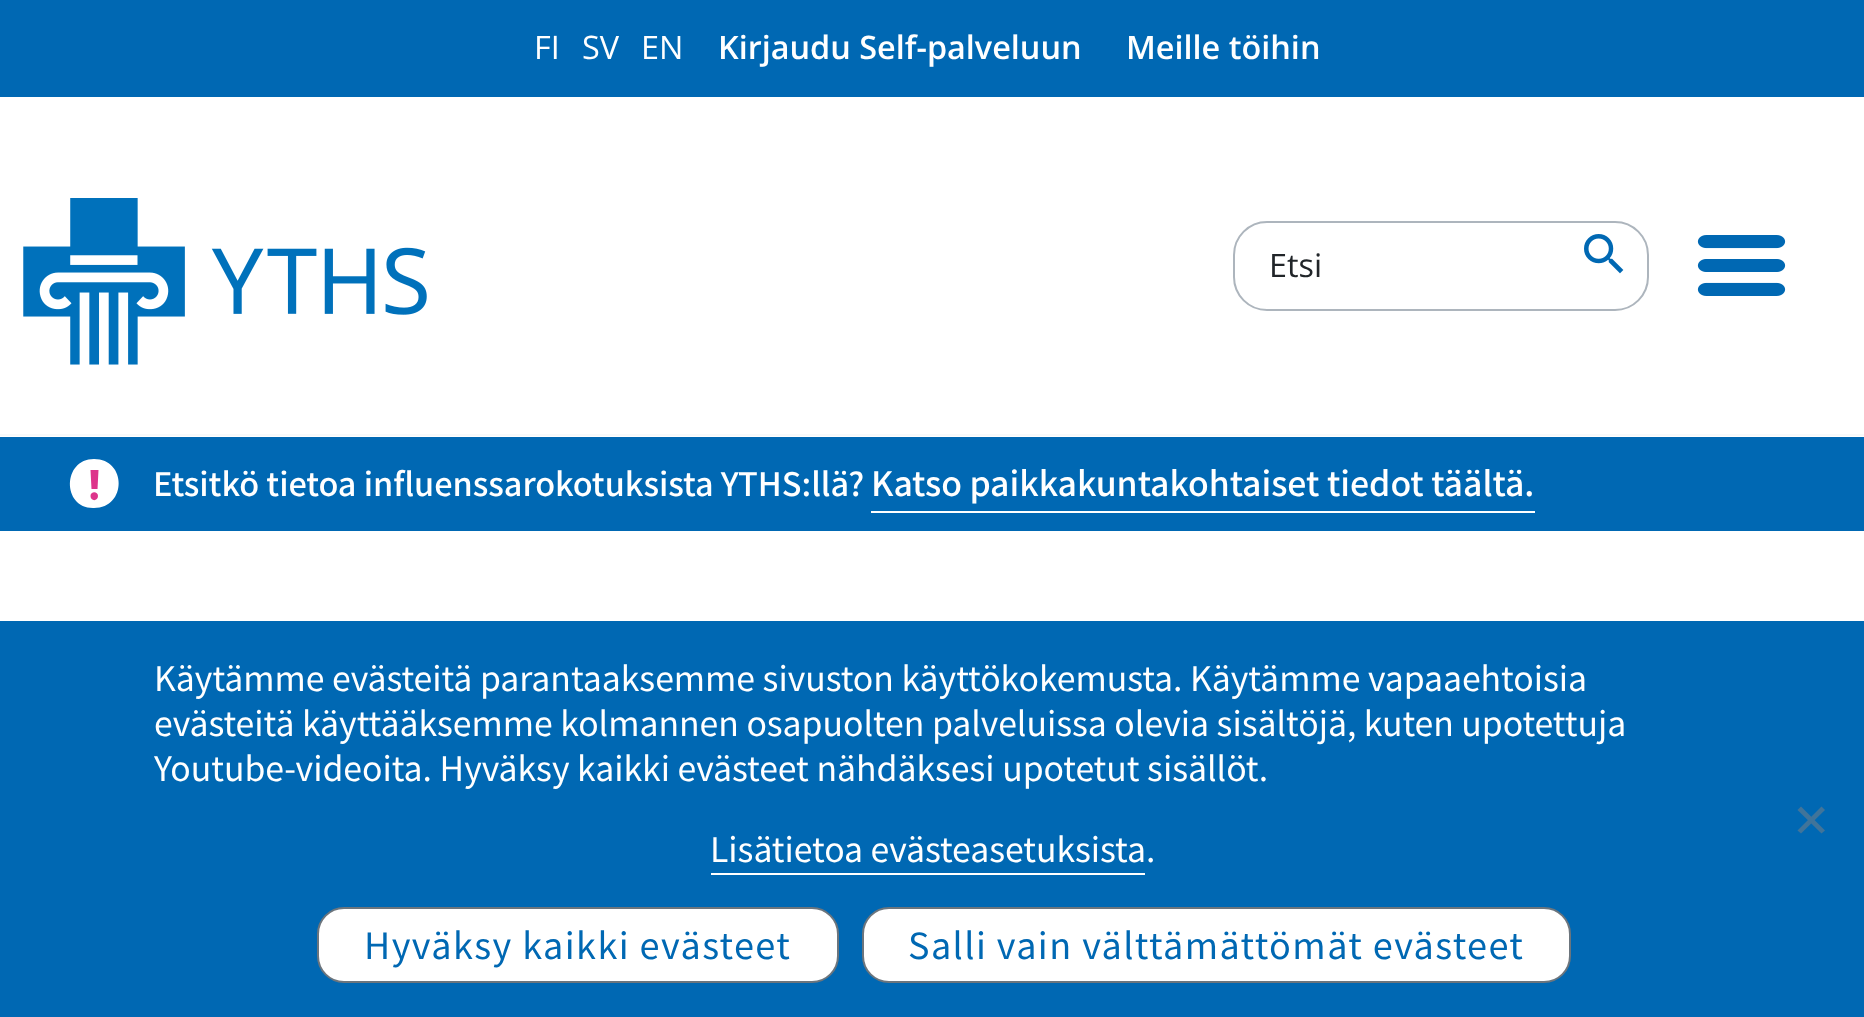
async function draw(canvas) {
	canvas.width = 1864;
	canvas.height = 1017;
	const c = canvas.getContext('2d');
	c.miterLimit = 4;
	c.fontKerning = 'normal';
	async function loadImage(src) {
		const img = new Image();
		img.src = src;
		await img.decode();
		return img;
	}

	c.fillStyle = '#fff';
	c.fillRect(0, 0, 1864, 1017);
	c.fillStyle = '#f8f9fa';
	c.fillRect(0, 434, 1864, 2);
	c.fillStyle = '#0068b3';
	c.fillRect(0, 0, 1864, 97);
	c.font = '32.4px Open Sans';
	c.fillStyle = '#fff';
	for (const [text, x, y] of [
		['FI', 534, 59],
		['SV', 582, 59],
		['EN', 641, 59],
	]) {
		c.fillText(text, x, y);
	}
	c.font = '600 32.4px Open Sans';
	c.fillText('Kirjaudu Self-palveluun', 718, 59);
	c.fillText('Meille töihin', 1126, 59);
	c.drawImage(await loadImage('img1.png'), 23, 198, 404, 167);
	c.beginPath();
	c.roundRect(1234, 222, 414, 88, 33);
	c.strokeStyle = '#adb5bd';
	c.lineWidth = 2;
	c.stroke();
	c.font = '32.4px Open Sans';
	c.fillStyle = '#212529';
	c.fillText('Etsi', 1269, 277);
	c.drawImage(await loadImage('img2.png'), 1584, 234, 40, 40);
	c.drawImage(await loadImage('img3.png'), 1697, 235, 89, 61);
	c.fillStyle = '#0068b3';
	c.fillRect(0, 437, 1864, 94);
	c.fillStyle = '#fff';
	c.beginPath();
	c.moveTo(94, 459);
	c.bezierCurveTo(62, 459, 62, 509, 94, 508);
	c.bezierCurveTo(127, 508, 127, 459, 94, 459);
	c.closePath();
	c.fill();
	c.fillStyle = '#dd358b';
	c.beginPath();
	c.moveTo(97.5, 489);
	c.lineTo(91.5, 489);
	c.lineTo(90.5, 470);
	c.lineTo(98.5, 470);
	c.closePath();
	c.moveTo(90.5, 496);
	c.bezierCurveTo(90.5, 491, 98, 491, 98, 496);
	c.bezierCurveTo(98, 501.5, 90.5, 501.5, 90.5, 496);
	c.closePath();
	c.fill();
	c.font = '500 32.4px Noto Sans SC';
	c.fillStyle = '#fff';
	c.fillText('Etsitkö tietoa influenssarokotuksista YTHS:llä?', 153, 496);
	c.font = '500 33.75px Noto Sans SC';
	c.fillText('Katso paikkakuntakohtaiset tiedot täältä.', 871, 496);
	c.fillRect(871, 511, 664, 2);
	c.fillStyle = '#0068b3';
	c.fillRect(0, 621, 1864, 396);
	c.font = '33.75px Noto Sans SC';
	c.fillStyle = '#fff';
	for (const [text, x, y] of [
		['Käytämme evästeitä parantaaksemme sivuston käyttökokemusta. Käytämme vapaaehtoisia', 154, 691],
		['evästeitä käyttääksemme kolmannen osapuolten palveluissa olevia sisältöjä, kuten upotettuja', 154, 736],
		['Youtube-videoita. Hyväksy kaikki evästeet nähdäksesi upotetut sisällöt.', 154, 781],
		['Lisätietoa evästeasetuksista', 710, 862],
	]) {
		c.fillText(text, x, y);
	}
	c.fillRect(711, 873, 434, 2);
	c.fillText('.', 1146, 862);
	c.fillStyle = '#40749a';
	c.beginPath();
	c.moveTo(1821.5, 806.5);
	c.lineTo(1825, 810);
	c.lineTo(1801, 833.5);
	c.lineTo(1797.5, 830.5);
	c.closePath();
	c.fill();
	c.beginPath();
	c.moveTo(1797.5, 810);
	c.lineTo(1801, 806.5);
	c.lineTo(1825, 830.5);
	c.lineTo(1821.5, 833.5);
	c.closePath();
	c.fill();
	c.fillStyle = '#fff';
	c.beginPath();
	c.roundRect(318, 908, 520, 74, 26);
	c.fill();
	c.strokeStyle = '#6c757d';
	c.stroke();
	c.letterSpacing = '1.45px';
	c.font = '36px Noto Sans SC';
	c.fillStyle = '#0068b3';
	c.fillText('Hyväksy kaikki evästeet', 364, 959);
	c.fillStyle = '#fff';
	c.beginPath();
	c.roundRect(863, 908, 707, 74, 26);
	c.fill();
	c.stroke();
	c.fillStyle = '#0068b3';
	c.fillText('Salli vain välttämättömät evästeet', 908, 959);
}

draw(document.querySelector('canvas'));
